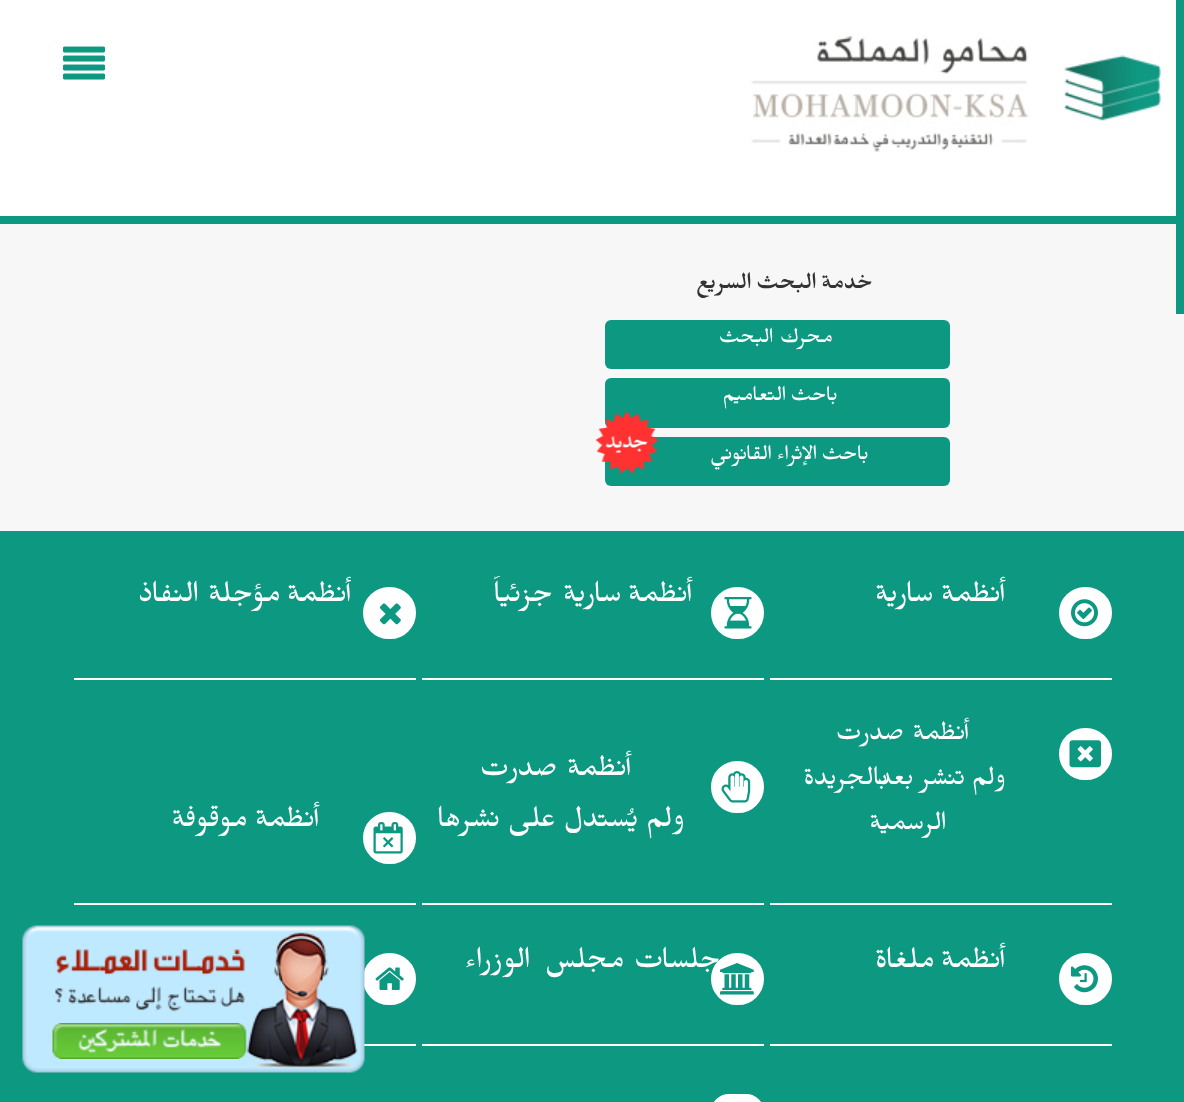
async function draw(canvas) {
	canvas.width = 1184;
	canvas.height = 1102;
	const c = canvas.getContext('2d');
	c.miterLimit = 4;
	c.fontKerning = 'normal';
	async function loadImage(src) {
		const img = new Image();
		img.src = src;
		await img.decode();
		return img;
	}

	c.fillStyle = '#f7f7f7';
	c.fillRect(0, 0, 1184, 1102);
	for (const [x, y, w, h, color] of [
		[0, 216, 1184, 8, '#0d9882'],
		[1176, 0, 8, 314, '#0d9882'],
		[0, 0, 1176, 216, '#fff'],
	]) {
		c.fillStyle = color;
		c.fillRect(x, y, w, h);
	}
	c.drawImage(await loadImage('img1.png'), 751, 35, 410, 117);
	c.drawImage(await loadImage('img2.png'), 63, 46, 42, 34);
	c.wordSpacing = '-2px';
	c.direction = 'rtl';
	c.font = '500 27px Mirza';
	c.fillStyle = '#333';
	c.fillText('خدمة البحث السريع', 873, 288);
	c.fillStyle = '#0d9882';
	c.beginPath();
	c.roundRect(605, 320, 345, 49, 6);
	c.fill();
	c.wordSpacing = '0px';
	c.font = '25.25px Mirza';
	c.fillStyle = '#fff';
	c.fillText('محرك البحث', 833, 342);
	c.fillStyle = '#0d9882';
	c.beginPath();
	c.roundRect(605, 378, 345, 50, 6);
	c.fill();
	c.wordSpacing = '-2px';
	c.fillStyle = '#fff';
	c.fillText('باحث التعاميم', 838, 400);
	c.fillStyle = '#0d9882';
	c.beginPath();
	c.roundRect(605, 437, 345, 49, 6);
	c.fill();
	c.fillStyle = '#fff';
	c.fillText('باحث الإثراء القانوني', 869, 459);
	c.drawImage(await loadImage('img3.png'), 595, 411, 64, 63);
	c.fillStyle = '#0d9882';
	c.fillRect(0, 531, 1184, 571);
	c.fillStyle = '#fff';
	c.fillRect(770, 678, 342, 2);
	c.beginPath();
	c.roundRect(1060, 588, 51, 50, 25);
	c.fill();
	c.strokeStyle = '#fff';
	c.lineWidth = 2;
	c.stroke();
	c.drawImage(await loadImage('img4.png'), 1071, 599, 27, 28);
	c.wordSpacing = '0px';
	c.font = '35.75px Mirza';
	c.fillText('أنظمة', 1005, 601);
	c.fillText('سارية', 934, 601);
	c.fillRect(422, 678, 342, 2);
	c.beginPath();
	c.roundRect(712, 588, 51, 50, 25);
	c.fill();
	c.stroke();
	c.drawImage(await loadImage('img5.png'), 724, 597, 28, 32);
	c.fillText('أنظمة', 692, 601);
	c.save();
	c.beginPath();
	c.rect(494, 576, 198, 51);
	c.clip();
	c.fillText('سارية جزئياً', 622, 601);
	c.restore();
	c.fillRect(74, 678, 342, 2);
	c.beginPath();
	c.roundRect(364, 588, 51, 50, 25);
	c.fill();
	c.stroke();
	c.drawImage(await loadImage('img6.png'), 379, 603, 22, 22);
	c.save();
	c.beginPath();
	c.rect(140, 576, 211, 51);
	c.clip();
	c.fillText('أنظمة', 351, 601);
	c.restore();
	c.fillText('مؤجلة النفاذ', 281, 601);
	c.fillRect(770, 903, 342, 2);
	c.beginPath();
	c.roundRect(1060, 729, 51, 50, 25);
	c.fill();
	c.stroke();
	c.drawImage(await loadImage('img7.png'), 1069, 740, 32, 28);
	c.font = '31.5px Mirza';
	c.fillText('أنظمة صدرت', 969, 739);
	c.wordSpacing = '-2px';
	c.fillText('ولم تنشر بعد', 1006, 784);
	c.wordSpacing = '0px';
	c.fillText('بالجريدة', 888, 784);
	c.fillText('الرسمية', 946, 829);
	c.fillRect(422, 903, 342, 2);
	c.beginPath();
	c.roundRect(712, 762, 51, 50, 25);
	c.fill();
	c.stroke();
	c.drawImage(await loadImage('img8.png'), 721, 771, 30, 32);
	c.font = '35.75px Mirza';
	c.fillText('أنظمة صدرت', 631, 775);
	c.wordSpacing = '-2px';
	c.fillText('ولم يُستدل على نشرها', 685, 826);
	c.fillRect(74, 903, 342, 2);
	c.beginPath();
	c.roundRect(364, 813, 51, 50, 25);
	c.fill();
	c.stroke();
	c.drawImage(await loadImage('img9.png'), 373, 822, 30, 32);
	c.wordSpacing = '0px';
	c.fillText('أنظمة', 319, 826);
	c.fillText('موقوفة', 248, 826);
	c.fillRect(770, 1044, 342, 2);
	c.beginPath();
	c.roundRect(1060, 954, 51, 50, 25);
	c.fill();
	c.stroke();
	c.drawImage(await loadImage('img10.png'), 1071, 965, 27, 28);
	c.fillText('أنظمة', 1005, 967);
	c.fillText('ملغاة', 935, 967);
	c.fillRect(422, 1044, 342, 2);
	c.beginPath();
	c.roundRect(712, 954, 51, 50, 25);
	c.fill();
	c.stroke();
	c.drawImage(await loadImage('img11.png'), 720, 963, 34, 32);
	c.fillText('جلسات مجلس', 721, 967);
	c.fillText('الوزراء', 530, 967);
	c.fillRect(364, 1044, 52, 2);
	c.beginPath();
	c.roundRect(364, 954, 51, 50, 25);
	c.fill();
	c.stroke();
	c.drawImage(await loadImage('img12.png'), 375, 967, 29, 23);
	c.beginPath();
	c.roundRect(712, 1095, 51, 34, 25);
	c.fill();
	c.stroke();
	c.drawImage(await loadImage('img13.png'), 22, 925, 343, 148);
	c.drawImage(await loadImage('img14.png'), 52, 1023, 195, 36);
}

draw(document.querySelector('canvas'));
